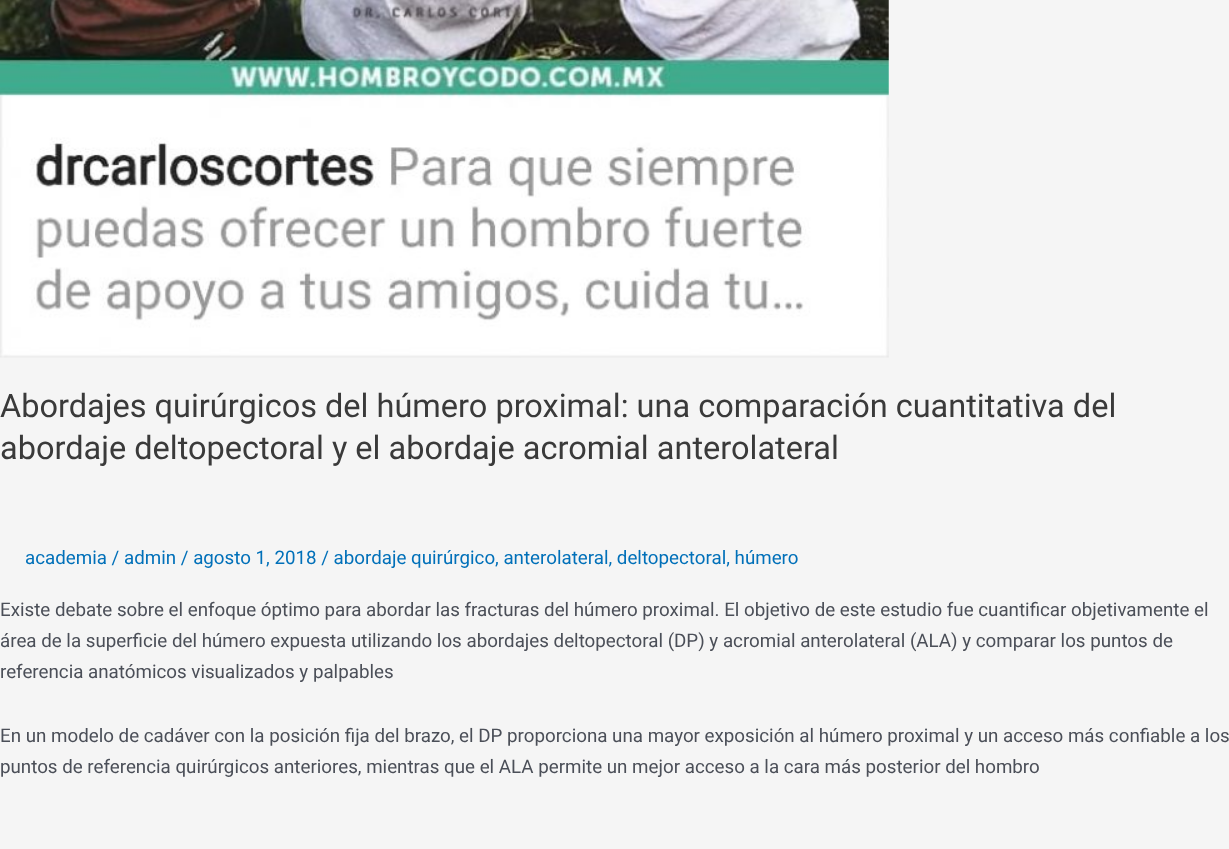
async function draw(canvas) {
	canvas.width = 1229;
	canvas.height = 849;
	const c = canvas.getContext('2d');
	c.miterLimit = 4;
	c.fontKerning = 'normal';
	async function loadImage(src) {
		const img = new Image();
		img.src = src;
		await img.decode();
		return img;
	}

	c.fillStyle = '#f5f5f5';
	c.fillRect(0, 0, 1229, 849);
	c.drawImage(await loadImage('img1.png'), 0, 0, 889, 358);
	c.font = '32.5px Roboto';
	c.fillStyle = '#3a3a3a';
	c.fillText('Abordajes quirúrgicos del húmero proximal: una comparación cuantitativa del', 0, 417);
	c.fillText('abordaje deltopectoral y el abordaje acromial anterolateral', 0, 459);
	c.font = '18.75px Roboto';
	c.fillStyle = '#0170b9';
	c.fillText('academia / admin / agosto 1, 2018 / abordaje quirúrgico, anterolateral, deltopectoral, húmero', 25, 564);
	c.fillStyle = '#4b4f58';
	for (const [text, x, y] of [
		['Existe debate sobre el enfoque óptimo para abordar las fracturas del húmero proximal. El objetivo de este estudio fue cuantificar objetivamente el', 0, 616],
		['área de la superficie del húmero expuesta utilizando los abordajes deltopectoral (DP) y acromial anterolateral (ALA) y comparar los puntos de', 0, 647],
		['referencia anatómicos visualizados y palpables', 0, 678],
		['En un modelo de cadáver con la posición fija del brazo, el DP proporciona una mayor exposición al húmero proximal y un acceso más confiable a los', 0, 742],
		['puntos de referencia quirúrgicos anteriores, mientras que el ALA permite un mejor acceso a la cara más posterior del hombro', 0, 773],
	]) {
		c.fillText(text, x, y);
	}
}

draw(document.querySelector('canvas'));
